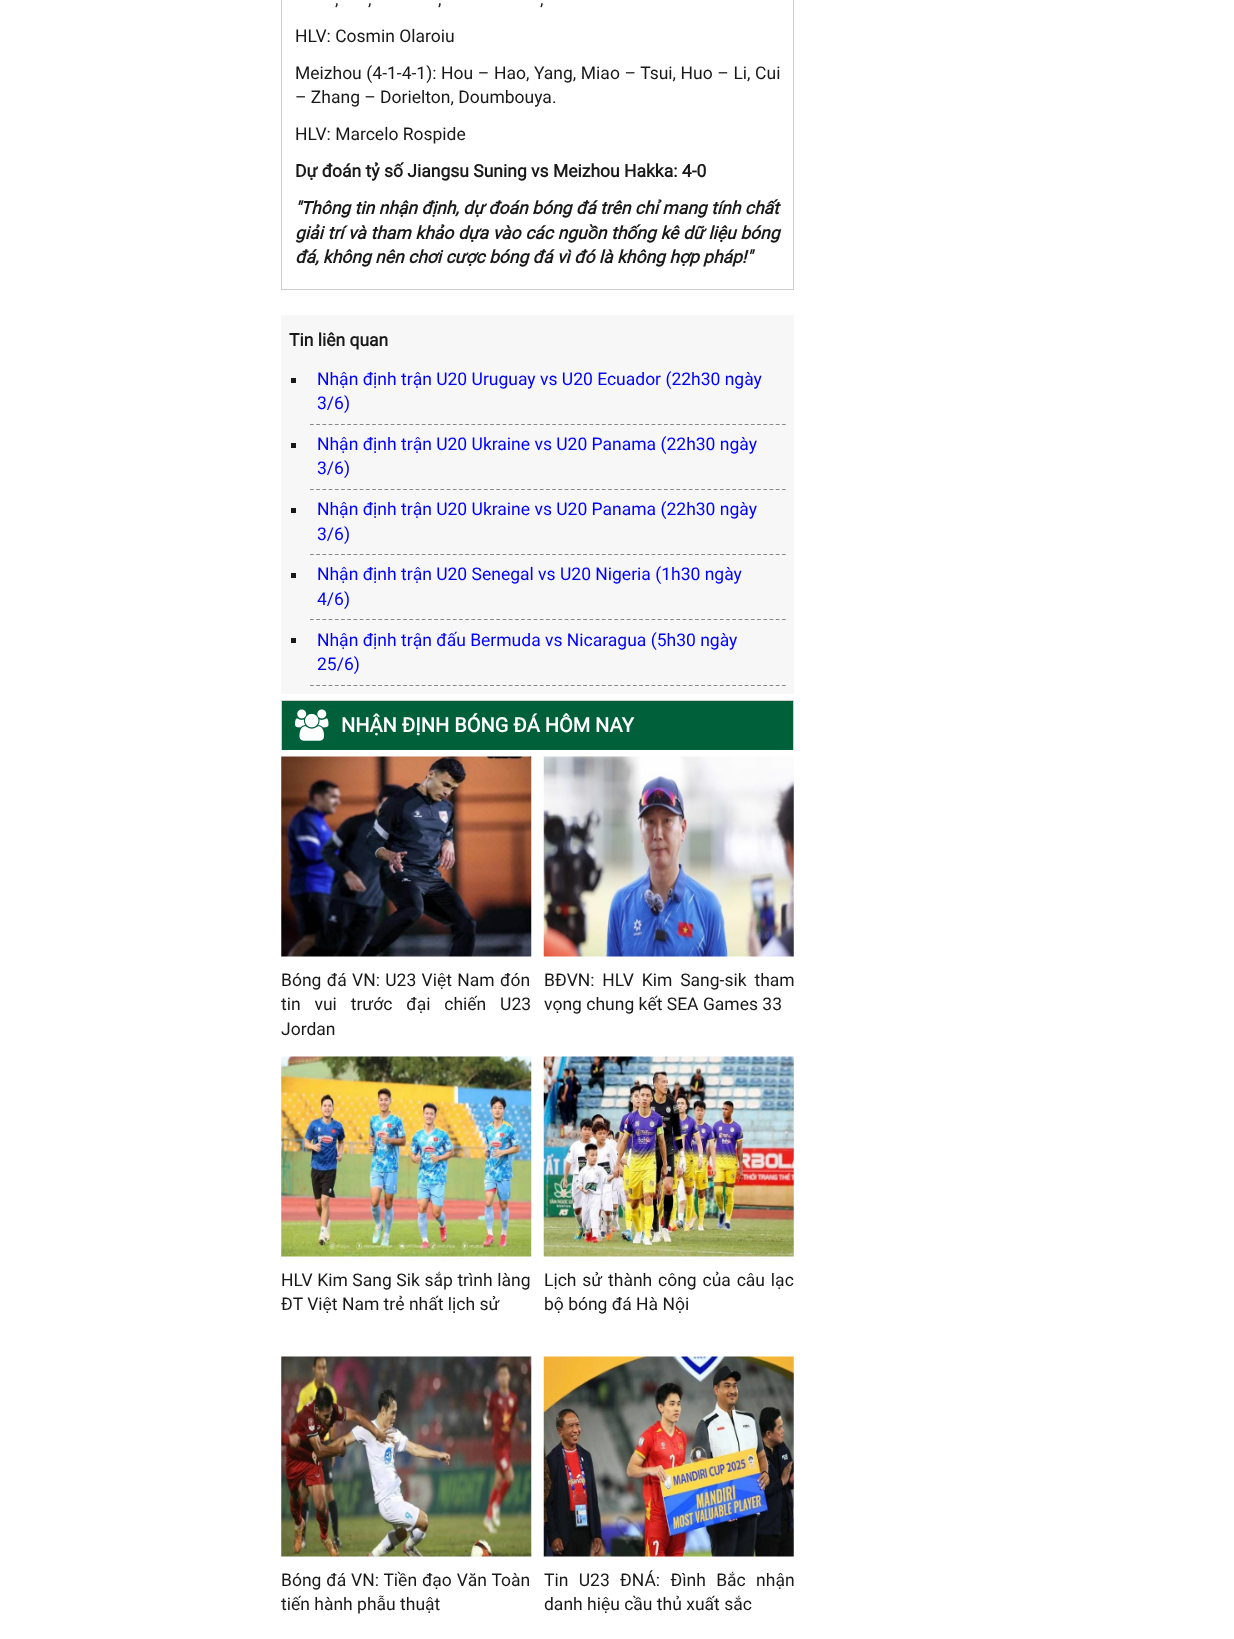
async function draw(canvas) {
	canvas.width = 1234;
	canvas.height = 1639;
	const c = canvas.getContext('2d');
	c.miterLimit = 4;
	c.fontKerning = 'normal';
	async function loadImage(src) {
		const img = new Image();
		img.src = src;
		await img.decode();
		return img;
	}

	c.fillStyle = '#fff';
	c.fillRect(0, 0, 1234, 1639);
	c.strokeStyle = '#cecece';
	c.strokeRect(281.5, -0.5, 512, 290);
	c.font = '17.5px Roboto';
	c.fillStyle = '#191919';
	for (const [text, x, y] of [
		[',', 335, 5],
		[',', 368, 5],
		[',', 438, 5],
		[',', 540, 5],
		['HLV: Cosmin Olaroiu', 295, 42],
	]) {
		c.fillText(text, x, y);
	}
	c.wordSpacing = '0.25px';
	c.fillText('Meizhou (4-1-4-1): Hou – Hao, Yang, Miao – Tsui, Huo – Li, Cui', 295, 79);
	c.wordSpacing = '0px';
	c.fillText('– Zhang – Dorielton, Doumbouya.', 295, 103);
	c.fillText('HLV: Marcelo Rospide', 295, 140);
	c.font = 'bold 17.5px Roboto';
	c.fillText('Dự đoán tỷ số Jiangsu Suning vs Meizhou Hakka: 4-0', 295, 177);
	c.font = 'italic bold 17.5px Roboto';
	c.fillText('"Thông tin nhận định, dự đoán bóng đá trên chỉ mang tính chất', 295, 214);
	c.wordSpacing = '0.25px';
	c.fillText('giải trí và tham khảo dựa vào các nguồn thống kê dữ liệu bóng', 295, 239);
	c.wordSpacing = '0px';
	c.fillText('đá, không nên chơi cược bóng đá vì đó là không hợp pháp!"', 295, 263);
	c.fillStyle = '#f7f7f7';
	c.fillRect(281, 315, 513, 379);
	c.font = 'bold 17.5px Roboto';
	c.fillStyle = '#191919';
	c.fillText('Tin liên quan', 289, 346);
	c.beginPath();
	c.moveTo(310, 424.5);
	c.lineTo(786, 424.5);
	c.strokeStyle = '#888';
	c.lineWidth = 1.2;
	c.setLineDash([3.75, 2.46]);
	c.stroke();
	c.fillRect(291, 378, 5, 5);
	c.font = '17.5px Roboto';
	c.fillStyle = '#00f';
	c.fillText('Nhận định trận U20 Uruguay vs U20 Ecuador (22h30 ngày', 317, 385);
	c.fillText('3/6)', 317, 409);
	c.beginPath();
	c.moveTo(310, 489.5);
	c.lineTo(786, 489.5);
	c.stroke();
	c.fillStyle = '#191919';
	c.fillRect(291, 443, 5, 5);
	c.fillStyle = '#00f';
	c.fillText('Nhận định trận U20 Ukraine vs U20 Panama (22h30 ngày', 317, 450);
	c.fillText('3/6)', 317, 474);
	c.beginPath();
	c.moveTo(310, 554.5);
	c.lineTo(786, 554.5);
	c.stroke();
	c.fillStyle = '#191919';
	c.fillRect(291, 508, 5, 5);
	c.fillStyle = '#00f';
	c.fillText('Nhận định trận U20 Ukraine vs U20 Panama (22h30 ngày', 317, 515);
	c.fillText('3/6)', 317, 540);
	c.beginPath();
	c.moveTo(310, 619.5);
	c.lineTo(786, 619.5);
	c.stroke();
	c.fillStyle = '#191919';
	c.fillRect(291, 573, 5, 5);
	c.fillStyle = '#00f';
	c.fillText('Nhận định trận U20 Senegal vs U20 Nigeria (1h30 ngày', 317, 580);
	c.fillText('4/6)', 317, 605);
	c.beginPath();
	c.moveTo(310, 685.5);
	c.lineTo(786, 685.5);
	c.stroke();
	c.fillStyle = '#191919';
	c.fillRect(291, 638, 5, 5);
	c.fillStyle = '#00f';
	c.fillText('Nhận định trận đấu Bermuda vs Nicaragua (5h30 ngày', 317, 646);
	c.fillText('25/6)', 317, 670);
	for (const [x, y, w, h, color] of [
		[282, 701, 511, 49, '#00603a'],
		[281, 700, 513, 1, '#cecece'],
		[793, 700, 1, 50, '#cecece'],
		[281, 700, 1, 50, '#cecece'],
	]) {
		c.fillStyle = color;
		c.fillRect(x, y, w, h);
	}
	c.drawImage(await loadImage('img1.png'), 295, 709, 34, 32);
	c.font = 'bold 20px Roboto';
	c.fillStyle = '#fff';
	c.fillText('NHẬN ĐỊNH BÓNG ĐÁ HÔM NAY', 341, 732);
	c.drawImage(await loadImage('img2.png'), 281, 756, 251, 201);
	c.wordSpacing = '1px';
	c.font = '17.5px Roboto';
	c.fillStyle = '#191919';
	c.fillText('Bóng đá VN: U23 Việt Nam đón', 281, 986);
	c.wordSpacing = '9.5px';
	c.fillText('tin vui trước đại chiến U23', 281, 1010);
	c.wordSpacing = '0px';
	c.fillText('Jordan', 281, 1035);
	c.drawImage(await loadImage('img3.png'), 543, 756, 251, 201);
	c.wordSpacing = '3.5px';
	c.fillText('BĐVN: HLV Kim Sang-sik tham', 544, 986);
	c.wordSpacing = '0px';
	c.fillText('vọng chung kết SEA Games 33', 544, 1010);
	c.drawImage(await loadImage('img4.png'), 281, 1056, 251, 201);
	c.wordSpacing = '0.25px';
	c.fillText('HLV Kim Sang Sik sắp trình làng', 281, 1286);
	c.wordSpacing = '0px';
	c.fillText('ĐT Việt Nam trẻ nhất lịch sử', 281, 1310);
	c.drawImage(await loadImage('img5.png'), 543, 1056, 251, 201);
	c.wordSpacing = '1.5px';
	c.fillText('Lịch sử thành công của câu lạc', 544, 1286);
	c.wordSpacing = '0px';
	c.fillText('bộ bóng đá Hà Nội', 544, 1310);
	c.drawImage(await loadImage('img6.png'), 281, 1356, 251, 201);
	c.wordSpacing = '0.5px';
	c.fillText('Bóng đá VN: Tiền đạo Văn Toàn', 281, 1586);
	c.wordSpacing = '0px';
	c.fillText('tiến hành phẫu thuật', 281, 1610);
	c.drawImage(await loadImage('img7.png'), 543, 1356, 251, 201);
	c.wordSpacing = '6px';
	c.fillText('Tin U23 ĐNÁ: Đình Bắc nhận', 544, 1586);
	c.wordSpacing = '0px';
	c.fillText('danh hiệu cầu thủ xuất sắc', 544, 1610);
}

draw(document.querySelector('canvas'));
